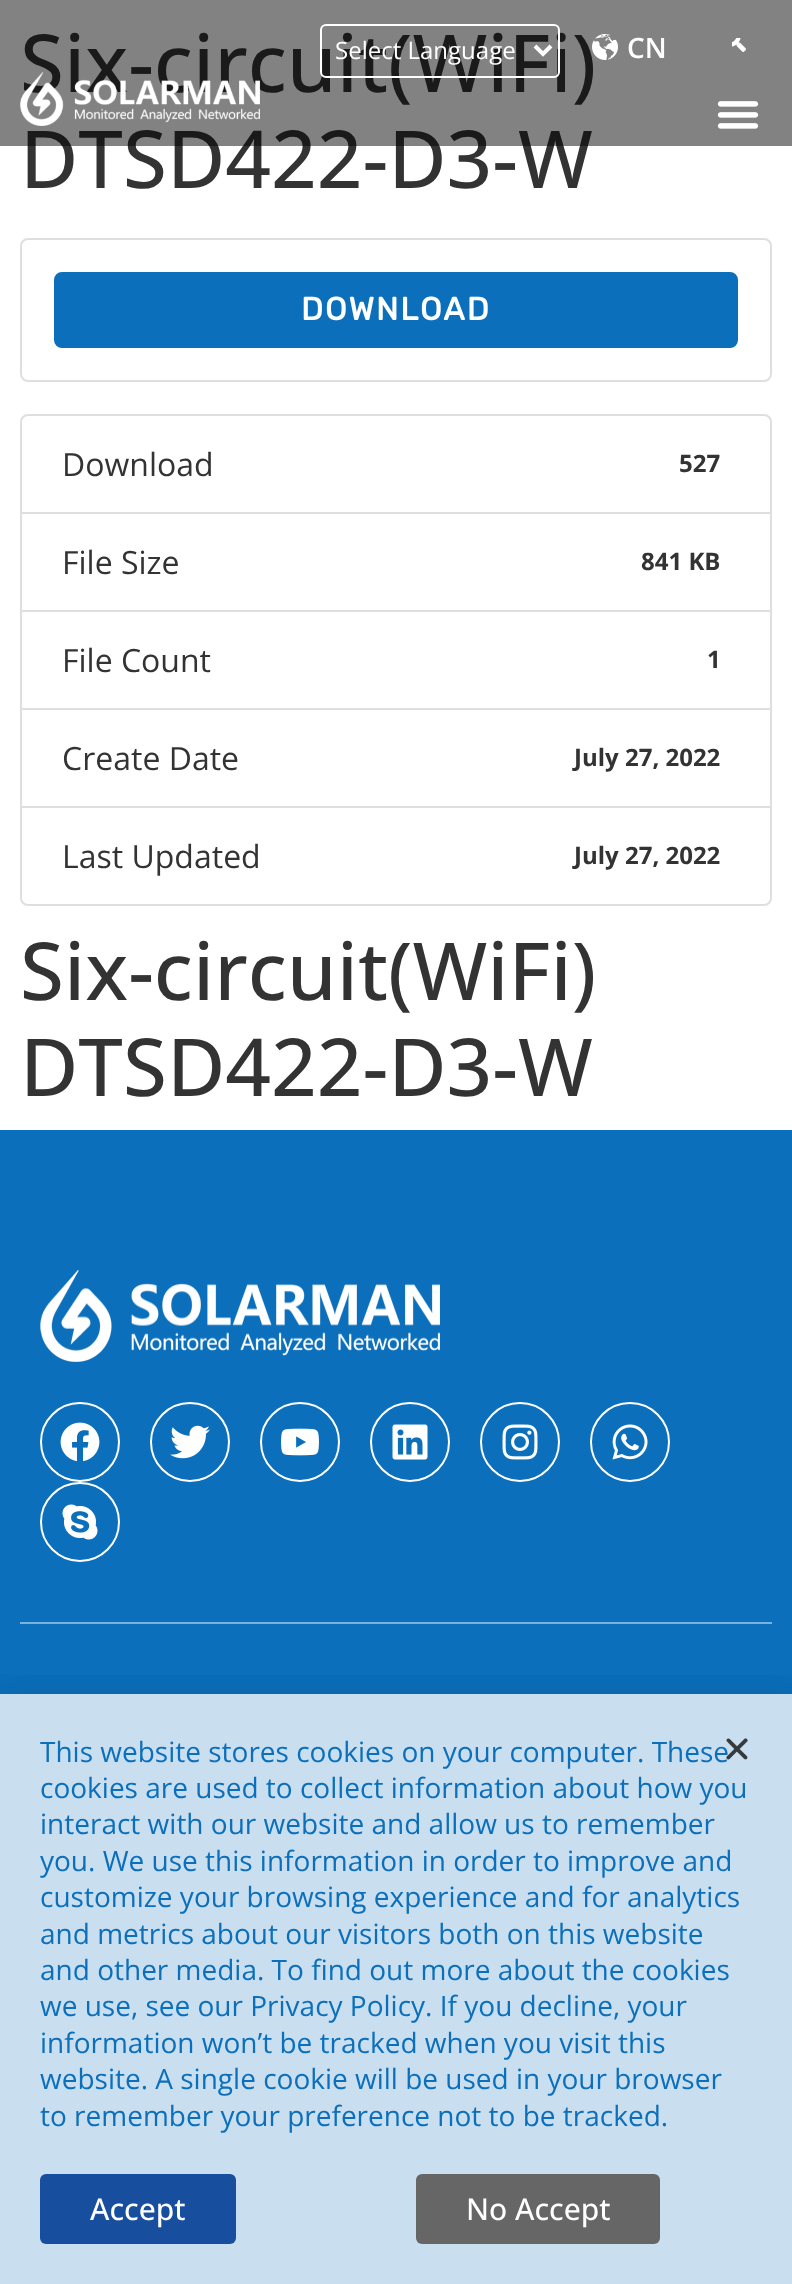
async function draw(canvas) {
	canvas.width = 792;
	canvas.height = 2284;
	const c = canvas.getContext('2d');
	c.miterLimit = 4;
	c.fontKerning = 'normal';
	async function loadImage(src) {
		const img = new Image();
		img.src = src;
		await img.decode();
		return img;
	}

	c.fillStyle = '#fff';
	c.fillRect(0, 0, 792, 2284);
	c.font = '500 80px Open Sans';
	c.fillStyle = '#333';
	c.fillText('Six-circuit(WiFi)', 20, 92);
	c.fillText('DTSD422-D3-W', 20, 188);
	c.beginPath();
	c.roundRect(21, 239, 750, 142, 7);
	c.strokeStyle = '#dfdfdf';
	c.lineWidth = 2;
	c.stroke();
	c.fillStyle = '#0b6fbb';
	c.beginPath();
	c.roundRect(55, 273, 682, 74, 7);
	c.fill();
	c.strokeStyle = '#0b6fbb';
	c.stroke();
	c.letterSpacing = '2px';
	c.font = 'bold 32px Rubik';
	c.fillStyle = '#fff';
	c.fillText('DOWNLOAD', 301, 320);
	c.beginPath();
	c.roundRect(21, 415, 750, 98, [7, 7, 0, 0]);
	c.strokeStyle = '#dfdfdf';
	c.stroke();
	c.letterSpacing = '0px';
	c.font = '32px Open Sans';
	c.fillStyle = '#333';
	c.fillText('Download', 62, 476);
	c.font = 'bold 24px Open Sans';
	c.fillText('527', 679, 472);
	c.strokeRect(21, 513, 750, 98);
	c.font = '32px Open Sans';
	c.fillText('File Size', 62, 574);
	c.font = 'bold 24px Open Sans';
	c.fillText('841 KB', 641, 570);
	c.strokeRect(21, 611, 750, 98);
	c.font = '32px Open Sans';
	c.fillText('File Count', 62, 672);
	c.font = 'bold 24px Open Sans';
	c.fillText('1', 707, 668);
	c.strokeRect(21, 709, 750, 98);
	c.font = '32px Open Sans';
	c.fillText('Create Date', 62, 770);
	c.font = 'bold 24px Open Sans';
	c.fillText('July 27, 2022', 574, 766);
	c.fillStyle = '#fff';
	c.beginPath();
	c.roundRect(21, 807, 750, 98, [0, 0, 7, 7]);
	c.fill();
	c.stroke();
	c.font = '32px Open Sans';
	c.fillStyle = '#333';
	c.fillText('Last Updated', 62, 868);
	c.font = 'bold 24px Open Sans';
	c.fillText('July 27, 2022', 574, 864);
	c.font = '500 80px Open Sans';
	c.fillText('Six-circuit(WiFi)', 20, 1000);
	c.fillText('DTSD422-D3-W', 20, 1096);
	c.fillStyle = '#0000007d';
	c.fillRect(0, 0, 792, 146);
	c.beginPath();
	c.roundRect(321, 25, 238, 52, 5);
	c.strokeStyle = '#fff';
	c.stroke();
	c.beginPath();
	c.moveTo(535, 46);
	c.lineTo(543, 54);
	c.lineTo(551, 46);
	c.lineWidth = 4;
	c.stroke();
	c.font = '24px Open Sans';
	c.fillStyle = '#fff';
	c.fillText('Select Language', 335, 59);
	c.drawImage(await loadImage('img1.png'), 592, 34, 26, 26);
	c.font = '600 28px Open Sans';
	c.fillText('CN', 627, 58);
	c.drawImage(await loadImage('img2.png'), 732, 38, 14, 14);
	c.drawImage(await loadImage('img3.png'), 717, 101, 42, 28);
	c.drawImage(await loadImage('img4.png'), 20, 72, 240, 54);
	c.fillStyle = '#0b6fbb';
	c.fillRect(0, 1130, 792, 1154);
	c.fillStyle = '#7bb1da';
	c.fillRect(20, 1622, 752, 2);
	c.drawImage(await loadImage('img5.png'), 40, 1270, 400, 92);
	c.beginPath();
	c.arc(80, 1442, 39, 0, 2 * Math.PI);
	c.lineWidth = 2;
	c.stroke();
	c.drawImage(await loadImage('img6.png'), 60, 1422, 40, 40);
	c.beginPath();
	c.arc(190, 1442, 39, 0, 2 * Math.PI);
	c.stroke();
	c.drawImage(await loadImage('img7.png'), 170, 1425, 40, 34);
	c.beginPath();
	c.arc(300, 1442, 39, 0, 2 * Math.PI);
	c.stroke();
	c.drawImage(await loadImage('img8.png'), 281, 1428, 38, 28);
	c.beginPath();
	c.arc(410, 1442, 39, 0, 2 * Math.PI);
	c.stroke();
	c.drawImage(await loadImage('img9.png'), 392, 1424, 36, 36);
	c.beginPath();
	c.arc(520, 1442, 39, 0, 2 * Math.PI);
	c.stroke();
	c.drawImage(await loadImage('img10.png'), 502, 1424, 36, 36);
	c.beginPath();
	c.arc(630, 1442, 39, 0, 2 * Math.PI);
	c.stroke();
	c.drawImage(await loadImage('img11.png'), 612, 1424, 36, 36);
	c.beginPath();
	c.arc(80, 1522, 39, 0, 2 * Math.PI);
	c.stroke();
	c.drawImage(await loadImage('img12.png'), 62, 1504, 36, 36);
	c.save();
	c.beginPath();
	c.rect(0, 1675, 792, 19);
	c.clip();
	c.fillStyle = '#00000033';
	c.filter = 'blur(23px)';
	c.beginPath();
	c.rect(-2, 1704, 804, 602);
	c.fill();
	c.filter = 'none';
	c.restore();
	c.fillStyle = '#ffffffc7';
	c.fillRect(0, 1694, 792, 590);
	c.font = '28px Open Sans';
	c.fillStyle = '#0b6fbb';
	c.fillText('This website stores cookies on your computer. These', 40, 1762);
	c.drawImage(await loadImage('img13.png'), 726, 1738, 22, 22);
	for (const [text, x, y] of [
		['cookies are used to collect information about how you', 40, 1798],
		['interact with our website and allow us to remember', 40, 1834],
		['you. We use this information in order to improve and', 40, 1871],
		['customize your browsing experience and for analytics', 40, 1907],
		['and metrics about our visitors both on this website', 40, 1944],
		['and other media. To find out more about the cookies', 40, 1980],
		['we use, see our Privacy Policy. If you decline, your', 40, 2016],
		['information won’t be tracked when you visit this', 40, 2053],
		['website. A single cookie will be used in your browser', 40, 2089],
		['to remember your preference not to be tracked.', 40, 2126],
	]) {
		c.fillText(text, x, y);
	}
	c.fillStyle = '#184e9e';
	c.beginPath();
	c.roundRect(40, 2174, 196, 70, 6);
	c.fill();
	c.font = '500 30px Open Sans';
	c.fillStyle = '#fff';
	c.fillText('Accept', 90, 2220);
	c.fillStyle = '#666';
	c.beginPath();
	c.roundRect(416, 2174, 244, 70, 6);
	c.fill();
	c.fillStyle = '#fff';
	c.fillText('No Accept', 466, 2220);
}

draw(document.querySelector('canvas'));
